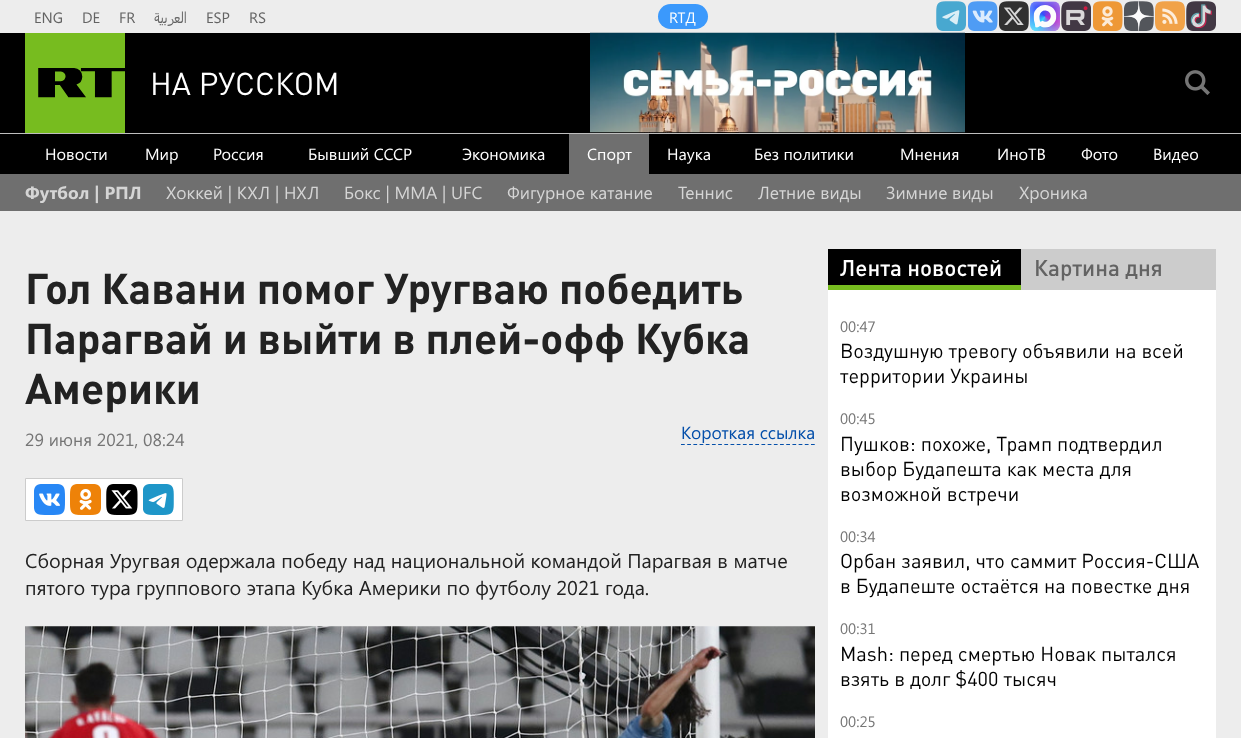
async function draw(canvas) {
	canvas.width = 1241;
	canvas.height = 738;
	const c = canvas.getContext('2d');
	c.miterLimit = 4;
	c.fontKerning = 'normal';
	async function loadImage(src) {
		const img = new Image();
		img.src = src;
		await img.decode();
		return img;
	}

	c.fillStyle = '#000';
	c.fillRect(0, 0, 1241, 738);
	c.fillStyle = '#ededed';
	c.fillRect(0, 0, 1241, 33);
	c.font = '15px Segoe UI';
	c.fillStyle = '#636363';
	for (const [text, x, y] of [
		['ENG', 34, 23],
		['DE', 82, 23],
		['FR', 119, 23],
	]) {
		c.fillText(text, x, y);
	}
	c.direction = 'rtl';
	c.fillText('العربية', 187, 23);
	c.direction = 'ltr';
	c.fillText('ESP', 206, 23);
	c.fillText('RS', 249, 23);
	c.fillStyle = '#3b99fc';
	c.beginPath();
	c.roundRect(658, 4, 50, 25, 12.5);
	c.fill();
	c.fillStyle = '#fff';
	c.fillText('RTД', 669, 23);
	c.drawImage(await loadImage('img1.png'), 936, 1, 30, 30);
	c.drawImage(await loadImage('img2.png'), 968, 1, 30, 30);
	c.drawImage(await loadImage('img3.png'), 999, 1, 30, 30);
	c.drawImage(await loadImage('img4.png'), 1030, 1, 30, 30);
	c.drawImage(await loadImage('img5.png'), 1061, 1, 30, 30);
	c.drawImage(await loadImage('img6.png'), 1093, 1, 30, 30);
	c.drawImage(await loadImage('img7.png'), 1124, 1, 30, 30);
	c.drawImage(await loadImage('img8.png'), 1155, 1, 30, 30);
	c.drawImage(await loadImage('img9.png'), 1186, 1, 30, 30);
	c.fillStyle = '#bebebe';
	c.fillRect(0, 133, 1241, 1);
	c.fillStyle = '#77bc1f';
	c.fillRect(25, 33, 100, 100);
	c.drawImage(await loadImage('img10.png'), 38, 68, 87, 30);
	c.font = '31.25px DIN';
	c.fillStyle = '#fff';
	c.fillText('НА РУССКОМ', 150, 95);
	c.drawImage(await loadImage('img11.png'), 590, 32, 375, 101);
	c.drawImage(await loadImage('img12.png'), 1185, 70, 25, 25);
	c.font = '16.25px Segoe UI';
	for (const [text, x, y] of [
		['Новости', 45, 160],
		['Мир', 145, 160],
		['Россия', 213, 160],
		['Бывший СССР', 308, 160],
		['Экономика', 462, 160],
	]) {
		c.fillText(text, x, y);
	}
	c.fillStyle = '#6f6f6f';
	c.fillRect(569, 134, 80, 40);
	c.fillStyle = '#fff';
	for (const [text, x, y] of [
		['Спорт', 587, 160],
		['Наука', 667, 160],
		['Без политики', 754, 160],
		['Мнения', 900, 160],
		['ИноТВ', 997, 160],
		['Фото', 1081, 160],
		['Видео', 1153, 160],
	]) {
		c.fillText(text, x, y);
	}
	c.fillStyle = '#6f6f6f';
	c.fillRect(0, 174, 1241, 37);
	c.font = 'bold 17.5px Segoe UI';
	c.fillStyle = '#d5d5d5';
	c.fillText('Футбол | РПЛ', 25, 199);
	c.font = '17.5px Segoe UI';
	for (const [text, x, y] of [
		['Хоккей | КХЛ | НХЛ', 166, 199],
		['Бокс | MMA | UFC', 344, 199],
		['Фигурное катание', 507, 199],
		['Теннис', 678, 199],
		['Летние виды', 758, 199],
		['Зимние виды', 886, 199],
		['Хроника', 1019, 199],
	]) {
		c.fillText(text, x, y);
	}
	c.fillStyle = '#ededed';
	c.fillRect(0, 211, 1241, 527);
	c.font = 'bold 42.5px DIN';
	c.fillStyle = '#222';
	for (const [text, x, y] of [
		['Гол Кавани помог Уругваю победить', 25, 304],
		['Парагвай и выйти в плей-офф Кубка', 25, 354],
		['Америки', 25, 404],
	]) {
		c.fillText(text, x, y);
	}
	c.font = '17.5px Segoe UI';
	c.fillStyle = '#757575';
	c.fillText('29 июня 2021, 08:24', 25, 446);
	c.fillStyle = '#044faa';
	c.fillText('Короткая ссылка', 681, 439);
	c.beginPath();
	c.moveTo(681, 444.5);
	c.lineTo(815, 444.5);
	c.strokeStyle = '#044faa';
	c.lineWidth = 1.2;
	c.setLineDash([3.75, 2.44]);
	c.stroke();
	c.fillStyle = '#fff';
	c.beginPath();
	c.rect(25.5, 478.5, 157, 42);
	c.fill();
	c.strokeStyle = '#ccc';
	c.lineWidth = 1;
	c.setLineDash([]);
	c.stroke();
	c.drawImage(await loadImage('img13.png'), 34, 484, 31, 31);
	c.drawImage(await loadImage('img14.png'), 70, 484, 31, 31);
	c.drawImage(await loadImage('img15.png'), 106, 484, 32, 31);
	c.drawImage(await loadImage('img16.png'), 143, 484, 31, 31);
	c.font = '20px Segoe UI';
	c.fillStyle = '#222';
	c.fillText('Сборная Уругвая одержала победу над национальной командой Парагвая в матче', 25, 568);
	c.fillText('пятого тура группового этапа Кубка Америки по футболу 2021 года.', 25, 595);
	c.drawImage(await loadImage('img17.png'), 25, 626, 790, 112);
	c.fillStyle = '#000';
	c.fillRect(828, 249, 193, 36);
	c.fillStyle = '#666';
	c.filter = 'blur(0.5px)';
	c.beginPath();
	c.rect(828, 290, 388, 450);
	c.fill();
	c.filter = 'none';
	c.fillStyle = '#77bc1f';
	c.fillRect(828, 285, 193, 5);
	c.font = '500 22.5px DIN';
	c.fillStyle = '#fff';
	c.fillText('Лента новостей', 840, 276);
	c.fillStyle = '#ccc';
	c.fillRect(1021, 249, 195, 41);
	c.fillStyle = '#636363';
	c.fillText('Картина дня', 1034, 276);
	c.fillStyle = '#fff';
	c.fillRect(828, 290, 388, 448);
	c.font = '15px Segoe UI';
	c.fillStyle = '#757575';
	c.fillText('00:47', 840, 332);
	c.font = '20px DIN';
	c.fillStyle = '#000';
	c.fillText('Воздушную тревогу объявили на всей', 840, 358);
	c.fillText('территории Украины', 840, 383);
	c.font = '15px Segoe UI';
	c.fillStyle = '#757575';
	c.fillText('00:45', 840, 424);
	c.font = '20px DIN';
	c.fillStyle = '#000';
	for (const [text, x, y] of [
		['Пушков: похоже, Трамп подтвердил', 840, 451],
		['выбор Будапешта как места для', 840, 476],
		['возможной встречи', 840, 501],
	]) {
		c.fillText(text, x, y);
	}
	c.font = '15px Segoe UI';
	c.fillStyle = '#757575';
	c.fillText('00:34', 840, 542);
	c.font = '20px DIN';
	c.fillStyle = '#000';
	c.fillText('Орбан заявил, что саммит Россия-США', 840, 568);
	c.fillText('в Будапеште остаётся на повестке дня', 840, 593);
	c.font = '15px Segoe UI';
	c.fillStyle = '#757575';
	c.fillText('00:31', 840, 634);
	c.font = '20px DIN';
	c.fillStyle = '#000';
	c.fillText('Mash: перед смертью Новак пытался', 840, 661);
	c.fillText('взять в долг $400 тысяч', 840, 686);
	c.font = '15px Segoe UI';
	c.fillStyle = '#757575';
	c.fillText('00:25', 840, 727);
}

draw(document.querySelector('canvas'));
